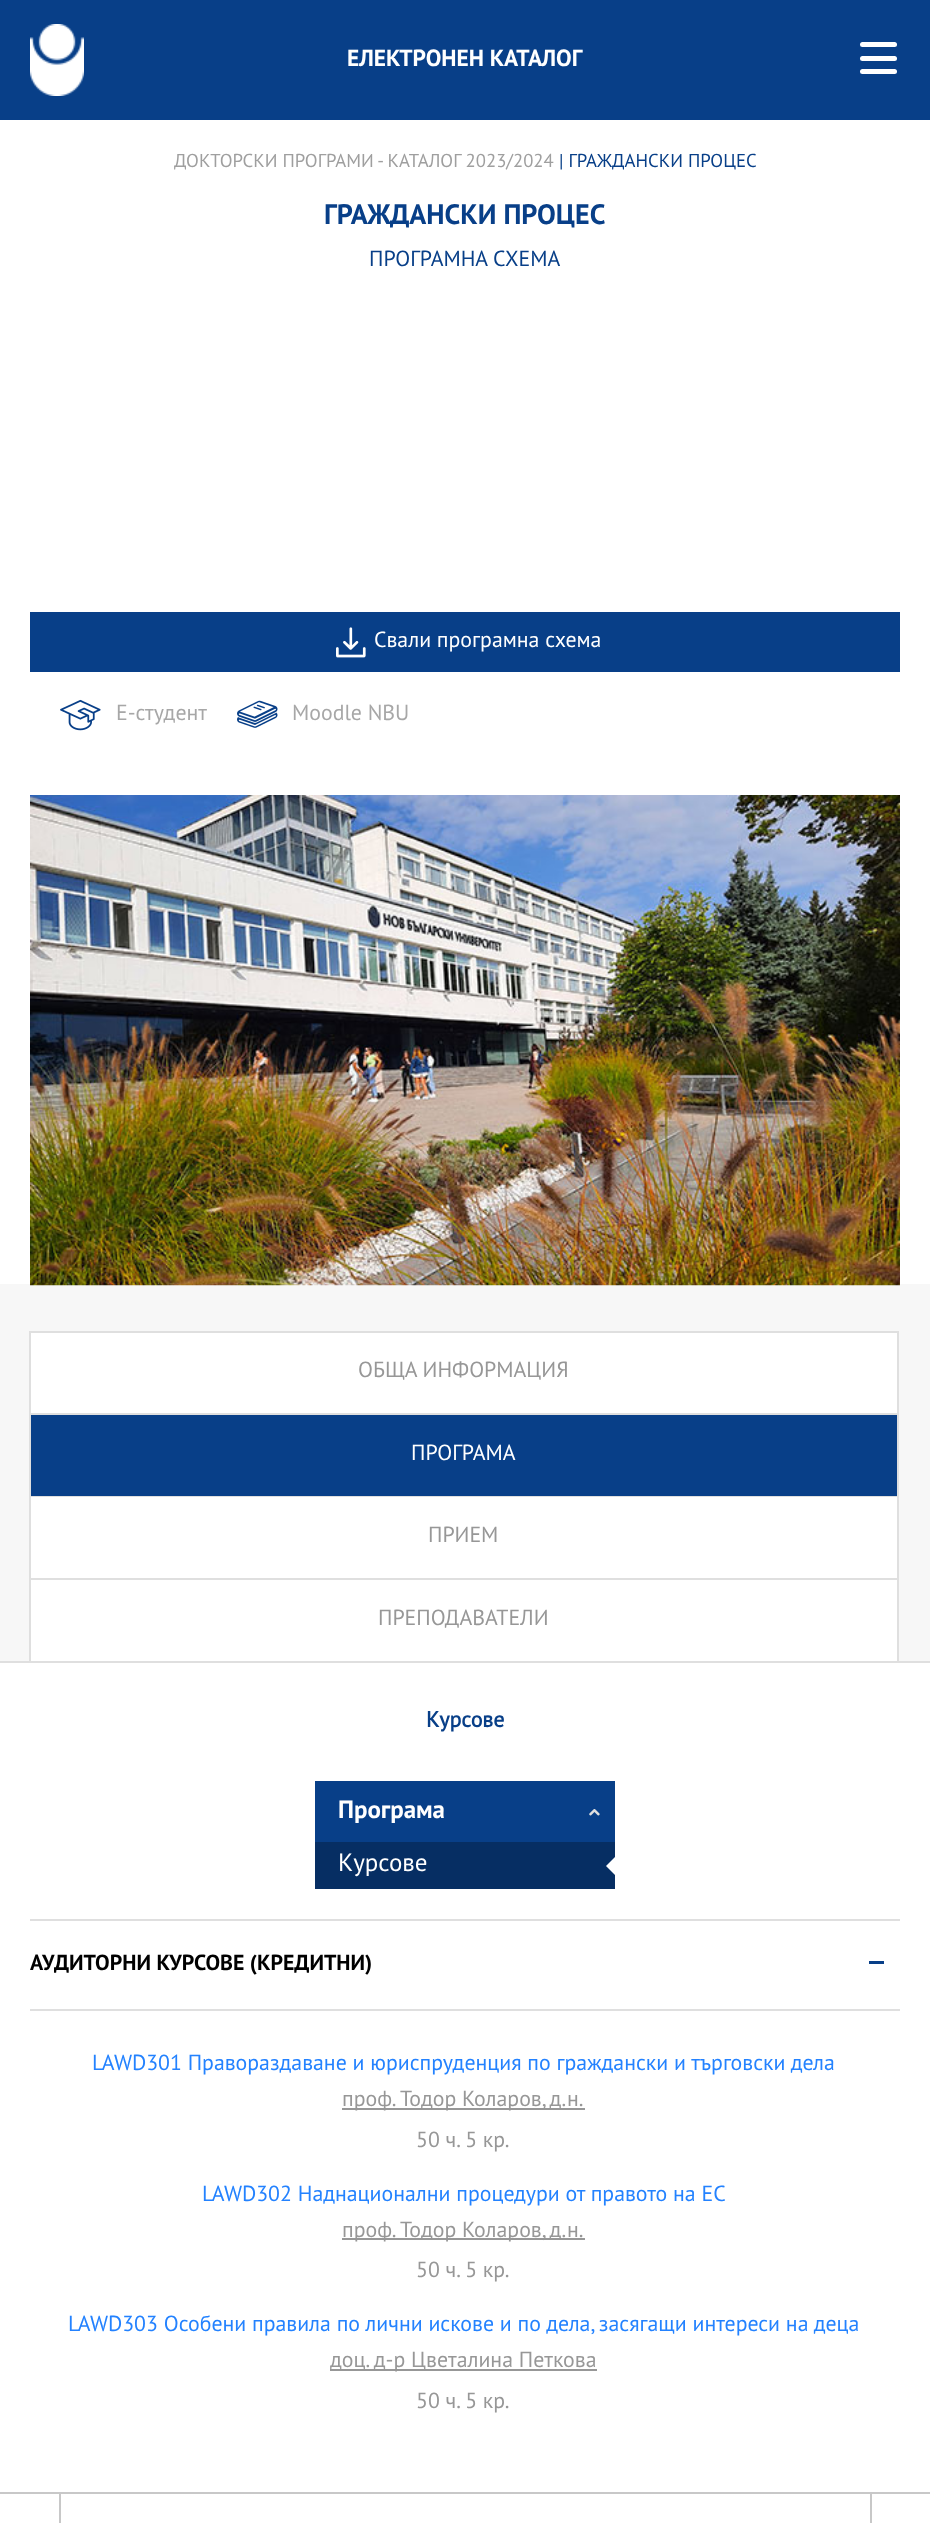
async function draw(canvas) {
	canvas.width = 930;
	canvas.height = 2523;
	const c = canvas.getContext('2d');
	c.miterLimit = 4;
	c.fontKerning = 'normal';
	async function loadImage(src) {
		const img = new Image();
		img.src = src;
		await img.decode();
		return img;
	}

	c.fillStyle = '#fff';
	c.fillRect(0, 0, 930, 2523);
	c.fillStyle = '#083f88';
	c.fillRect(0, 0, 930, 120);
	c.drawImage(await loadImage('img1.png'), 30, 24, 54, 72);
	c.font = 'bold 22.5px PT Sans';
	c.fillStyle = '#fff';
	c.fillText('ЕЛЕКТРОНЕН КАТАЛОГ', 347, 66);
	c.beginPath();
	c.roundRect(860, 42, 37, 5, 2.5);
	c.fill();
	c.beginPath();
	c.roundRect(860, 56, 37, 5, 2.5);
	c.fill();
	c.beginPath();
	c.roundRect(860, 69, 37, 5, 2.5);
	c.fill();
	c.font = '18px PT Sans';
	c.fillStyle = '#9f9f9f';
	c.fillText('ДОКТОРСКИ ПРОГРАМИ - КАТАЛОГ 2023/2024', 174, 167);
	c.fillStyle = '#083f88';
	c.fillText('| ГРАЖДАНСКИ ПРОЦЕС', 559, 167);
	c.font = 'bold 27px PT Sans';
	c.fillText('ГРАЖДАНСКИ ПРОЦЕС', 324, 224);
	c.font = '21px PT Sans';
	c.fillText('ПРОГРАМНА СХЕМА', 369, 266);
	c.fillRect(30, 612, 870, 60);
	c.drawImage(await loadImage('img2.png'), 336, 627, 30, 31);
	c.fillStyle = '#fff';
	c.fillText('Свали програмна схема', 374, 647);
	c.drawImage(await loadImage('img3.png'), 60, 699, 41, 32);
	c.fillStyle = '#a7a7a7';
	c.fillText('Е-студент', 116, 720);
	c.drawImage(await loadImage('img4.png'), 237, 700, 41, 28);
	c.fillText('Moodle NBU', 292, 720);
	c.fillStyle = '#f7f7f7';
	c.fillRect(0, 1284, 930, 377);
	c.drawImage(await loadImage('img5.png'), 30, 795, 870, 491);
	c.fillStyle = '#dfdfdf';
	c.fillRect(0, 1661, 930, 2);
	c.fillStyle = '#fff';
	c.beginPath();
	c.rect(30, 1332, 868, 82);
	c.fill();
	c.strokeStyle = '#dfdfdf';
	c.lineWidth = 2;
	c.stroke();
	c.fillStyle = '#979797';
	c.fillText('ОБЩА ИНФОРМАЦИЯ', 358, 1377);
	for (const [x, y, w, h, color] of [
		[31, 1415, 866, 81, '#083f88'],
		[897, 1415, 2, 247, '#dfdfdf'],
		[29, 1496, 870, 1, '#dfdfdf'],
		[29, 1415, 2, 82, '#dfdfdf'],
	]) {
		c.fillStyle = color;
		c.fillRect(x, y, w, h);
	}
	c.fillStyle = '#fff';
	c.fillText('ПРОГРАМА', 411, 1460);
	for (const [x, y, w, h, color] of [
		[31, 1497, 866, 81, '#fff'],
		[29, 1578, 870, 2, '#dfdfdf'],
		[29, 1497, 2, 165, '#dfdfdf'],
	]) {
		c.fillStyle = color;
		c.fillRect(x, y, w, h);
	}
	c.fillStyle = '#979797';
	c.fillText('ПРИЕМ', 428, 1542);
	c.fillStyle = '#fff';
	c.fillRect(31, 1580, 866, 81);
	c.fillStyle = '#979797';
	c.fillText('ПРЕПОДАВАТЕЛИ', 378, 1625);
	c.font = 'bold 21px "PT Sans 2"';
	c.fillStyle = '#083f88';
	c.fillText('Курсове', 426, 1727);
	c.fillRect(315, 1781, 300, 61);
	c.font = 'bold 24px PT Sans';
	c.fillStyle = '#fff';
	c.fillText('Програма', 338, 1818);
	c.drawImage(await loadImage('img6.png'), 589, 1809, 11, 7);
	c.fillStyle = '#062e63';
	c.fillRect(315, 1842, 300, 47);
	c.font = '24px PT Sans';
	c.fillStyle = '#fff';
	c.fillText('Курсове', 338, 1871);
	c.beginPath();
	c.moveTo(615, 1857);
	c.lineTo(615, 1875);
	c.lineTo(606, 1866);
	c.closePath();
	c.fill();
	c.fillStyle = '#dfdfdf';
	c.fillRect(30, 1919, 870, 2);
	c.fillRect(30, 2009, 870, 2);
	c.font = 'bold 21px PT Sans';
	c.fillStyle = '#000';
	c.fillText('АУДИТОРНИ КУРСОВЕ (КРЕДИТНИ)', 30, 1970);
	c.fillStyle = '#083f88';
	c.fillRect(869, 1961, 15, 3);
	c.font = '21px PT Sans';
	c.fillStyle = '#2382ff';
	c.fillText('LAWD301 Правораздаване и юриспруденция по граждански и търговски дела', 92, 2070);
	c.fillStyle = '#979797';
	c.fillRect(342, 2108, 243, 2);
	c.fillText('проф. Тодор Коларов, д.н.', 342, 2106);
	c.fillText('50 ч. 5 кр.', 416, 2147);
	c.fillStyle = '#2382ff';
	c.fillText('LAWD302 Наднационални процедури от правото на ЕС', 202, 2201);
	c.fillStyle = '#979797';
	c.fillRect(342, 2238, 243, 2);
	c.fillText('проф. Тодор Коларов, д.н.', 342, 2237);
	c.fillText('50 ч. 5 кр.', 416, 2277);
	c.fillStyle = '#2382ff';
	c.fillText('LAWD303 Особени правила по лични искове и по дела, засягащи интереси на деца', 68, 2331);
	c.fillStyle = '#979797';
	c.fillRect(330, 2369, 267, 2);
	c.fillText('доц. д-р Цветалина Петкова', 330, 2367);
	c.fillText('50 ч. 5 кр.', 416, 2408);
	for (const [x, y, w, h, color] of [
		[0, 2492, 930, 2, '#c8c8c8'],
		[59, 2493, 2, 30, '#c8c8c8'],
		[870, 2493, 2, 30, '#c8c8c8'],
	]) {
		c.fillStyle = color;
		c.fillRect(x, y, w, h);
	}
}

draw(document.querySelector('canvas'));
